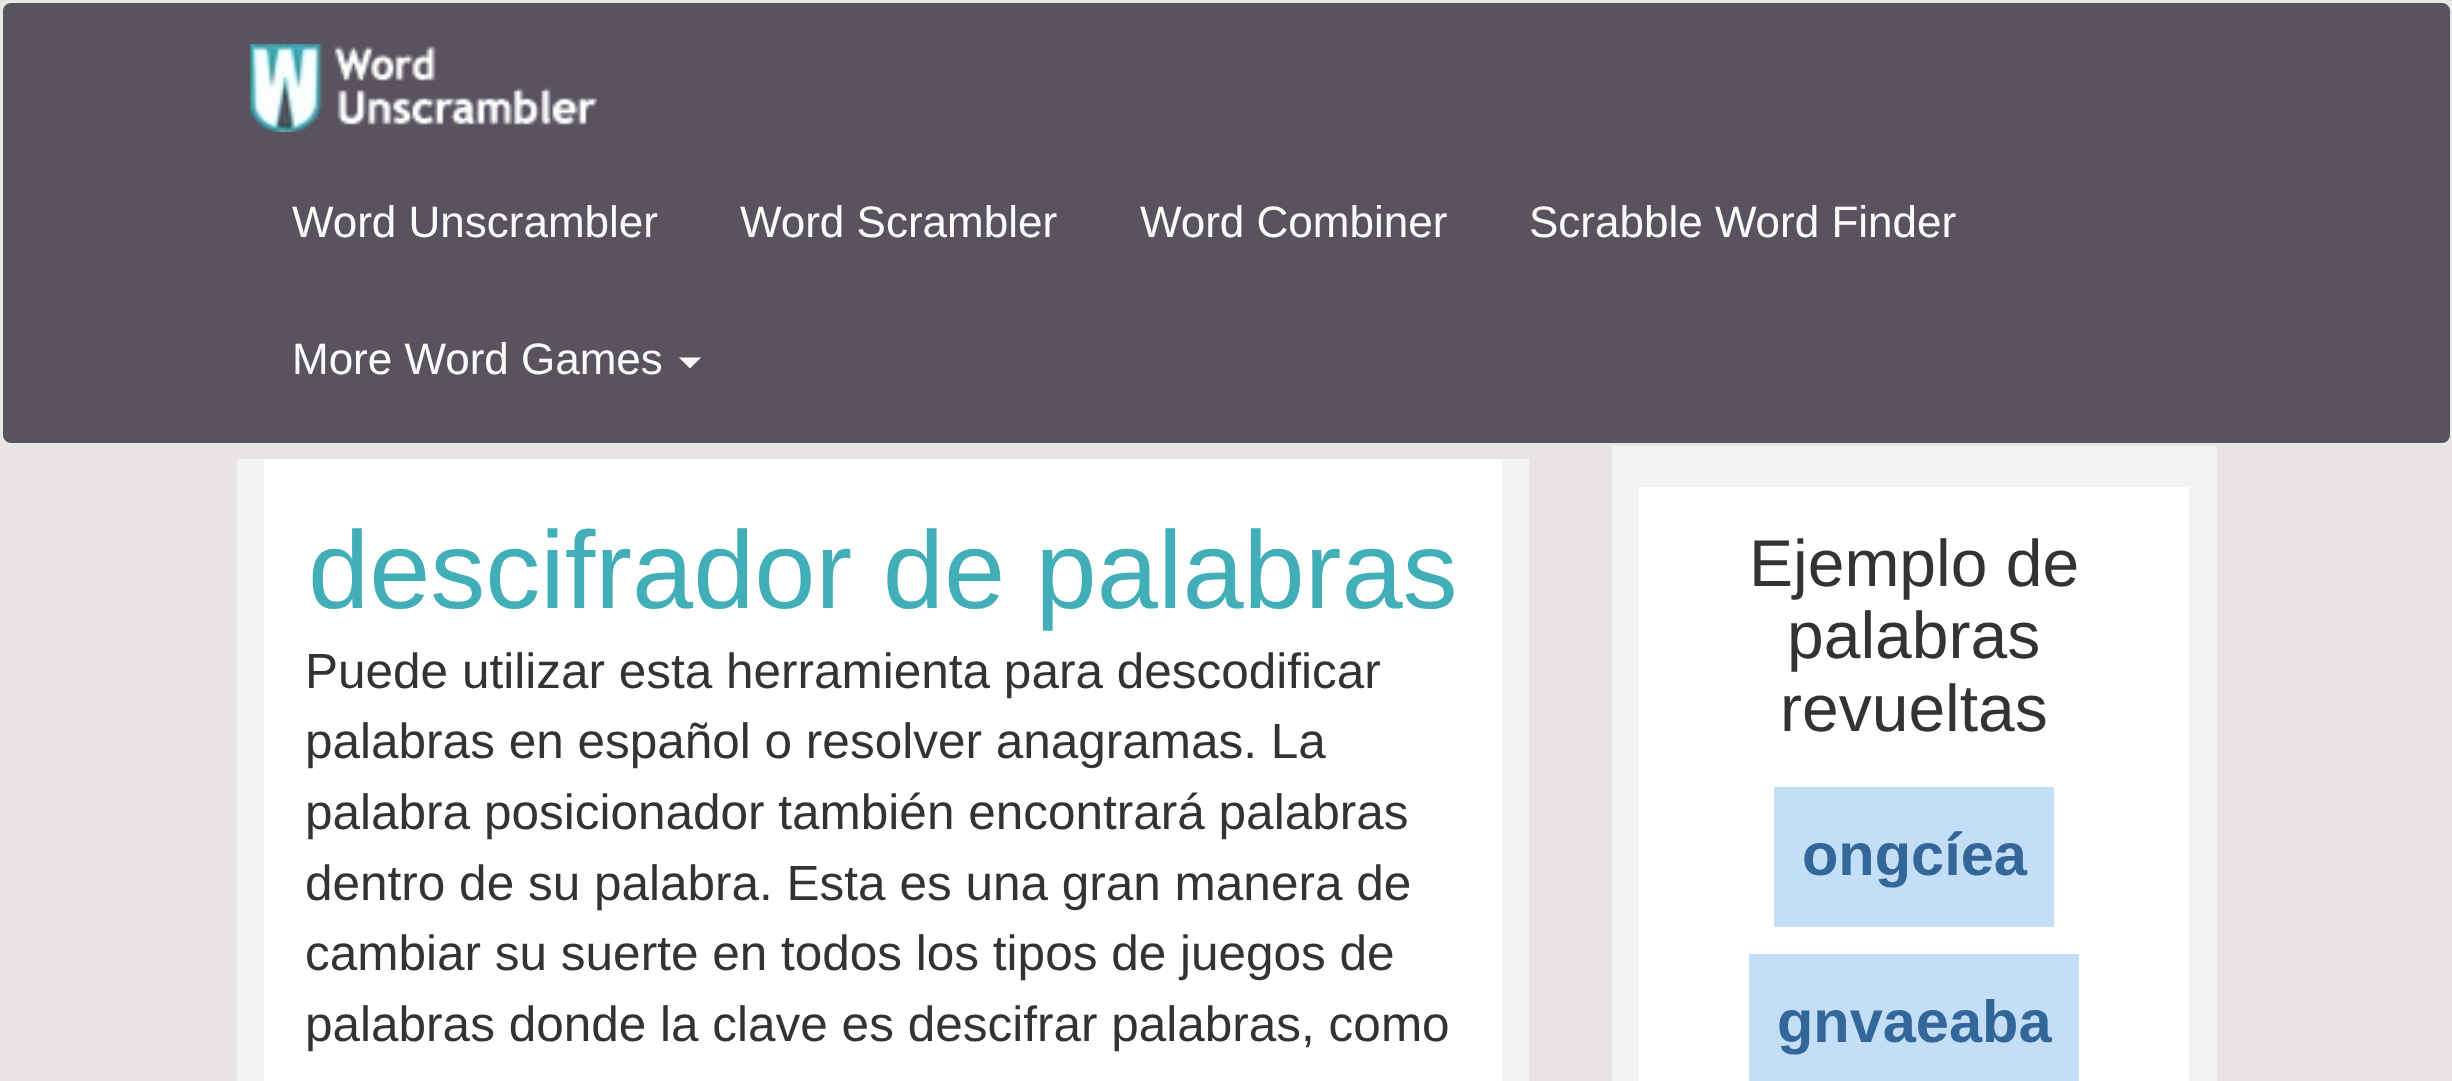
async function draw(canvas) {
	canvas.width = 2452;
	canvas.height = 1081;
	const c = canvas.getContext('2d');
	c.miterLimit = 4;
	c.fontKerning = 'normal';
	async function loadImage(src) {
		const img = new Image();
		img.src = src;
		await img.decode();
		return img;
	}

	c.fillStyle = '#e9e4e4';
	c.fillRect(0, 0, 2452, 1081);
	c.fillStyle = '#595360';
	c.beginPath();
	c.roundRect(1.5, 1.5, 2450, 443, 9.5);
	c.fill();
	c.strokeStyle = '#e7e7e7';
	c.lineWidth = 3;
	c.stroke();
	c.drawImage(await loadImage('img1.png'), 250, 44, 347, 88);
	c.font = '44px Liberation Sans';
	c.fillStyle = '#fafafa';
	for (const [text, x, y] of [
		['Word Unscrambler', 292, 237],
		['Word Scrambler', 740, 237],
		['Word Combiner', 1140, 237],
		['Scrabble Word Finder', 1529, 237],
		['More Word Games', 292, 374],
	]) {
		c.fillText(text, x, y);
	}
	c.beginPath();
	c.moveTo(679, 357.5);
	c.lineTo(701, 357.5);
	c.lineTo(690, 368.5);
	c.closePath();
	c.fill();
	c.fillStyle = '#f3f3f3';
	c.fillRect(237, 459, 1292, 622);
	c.fillStyle = '#fff';
	c.fillRect(264, 459, 1238, 622);
	c.font = '110px Liberation Sans';
	c.fillStyle = '#41aeb8';
	c.fillText('descifrador de palabras', 308, 608);
	c.font = '49.5px Liberation Sans';
	c.fillStyle = '#333';
	for (const [text, x, y] of [
		['Puede utilizar esta herramienta para descodificar', 305, 688],
		['palabras en español o resolver anagramas. La', 305, 758],
		['palabra posicionador también encontrará palabras', 305, 829],
		['dentro de su palabra. Esta es una gran manera de', 305, 900],
		['cambiar su suerte en todos los tipos de juegos de', 305, 970],
		['palabras donde la clave es descifrar palabras, como', 305, 1041],
	]) {
		c.fillText(text, x, y);
	}
	c.fillStyle = '#f3f3f3';
	c.fillRect(1612, 446, 605, 635);
	c.fillStyle = '#fff';
	c.fillRect(1639, 487, 550, 594);
	c.font = '66px Liberation Sans';
	c.fillStyle = '#333';
	for (const [text, x, y] of [
		['Ejemplo de', 1749, 586],
		['palabras', 1787, 658],
		['revueltas', 1780, 731],
	]) {
		c.fillText(text, x, y);
	}
	c.fillStyle = '#c4def8';
	c.fillRect(1774, 787, 280, 140);
	c.font = 'bold 59.5px Liberation Sans';
	c.fillStyle = '#369';
	c.fillText('ongcíea', 1802, 875);
	c.fillStyle = '#c4def8';
	c.fillRect(1749, 954, 330, 127);
	c.fillStyle = '#369';
	c.fillText('gnvaeaba', 1777, 1042);
}

draw(document.querySelector('canvas'));
